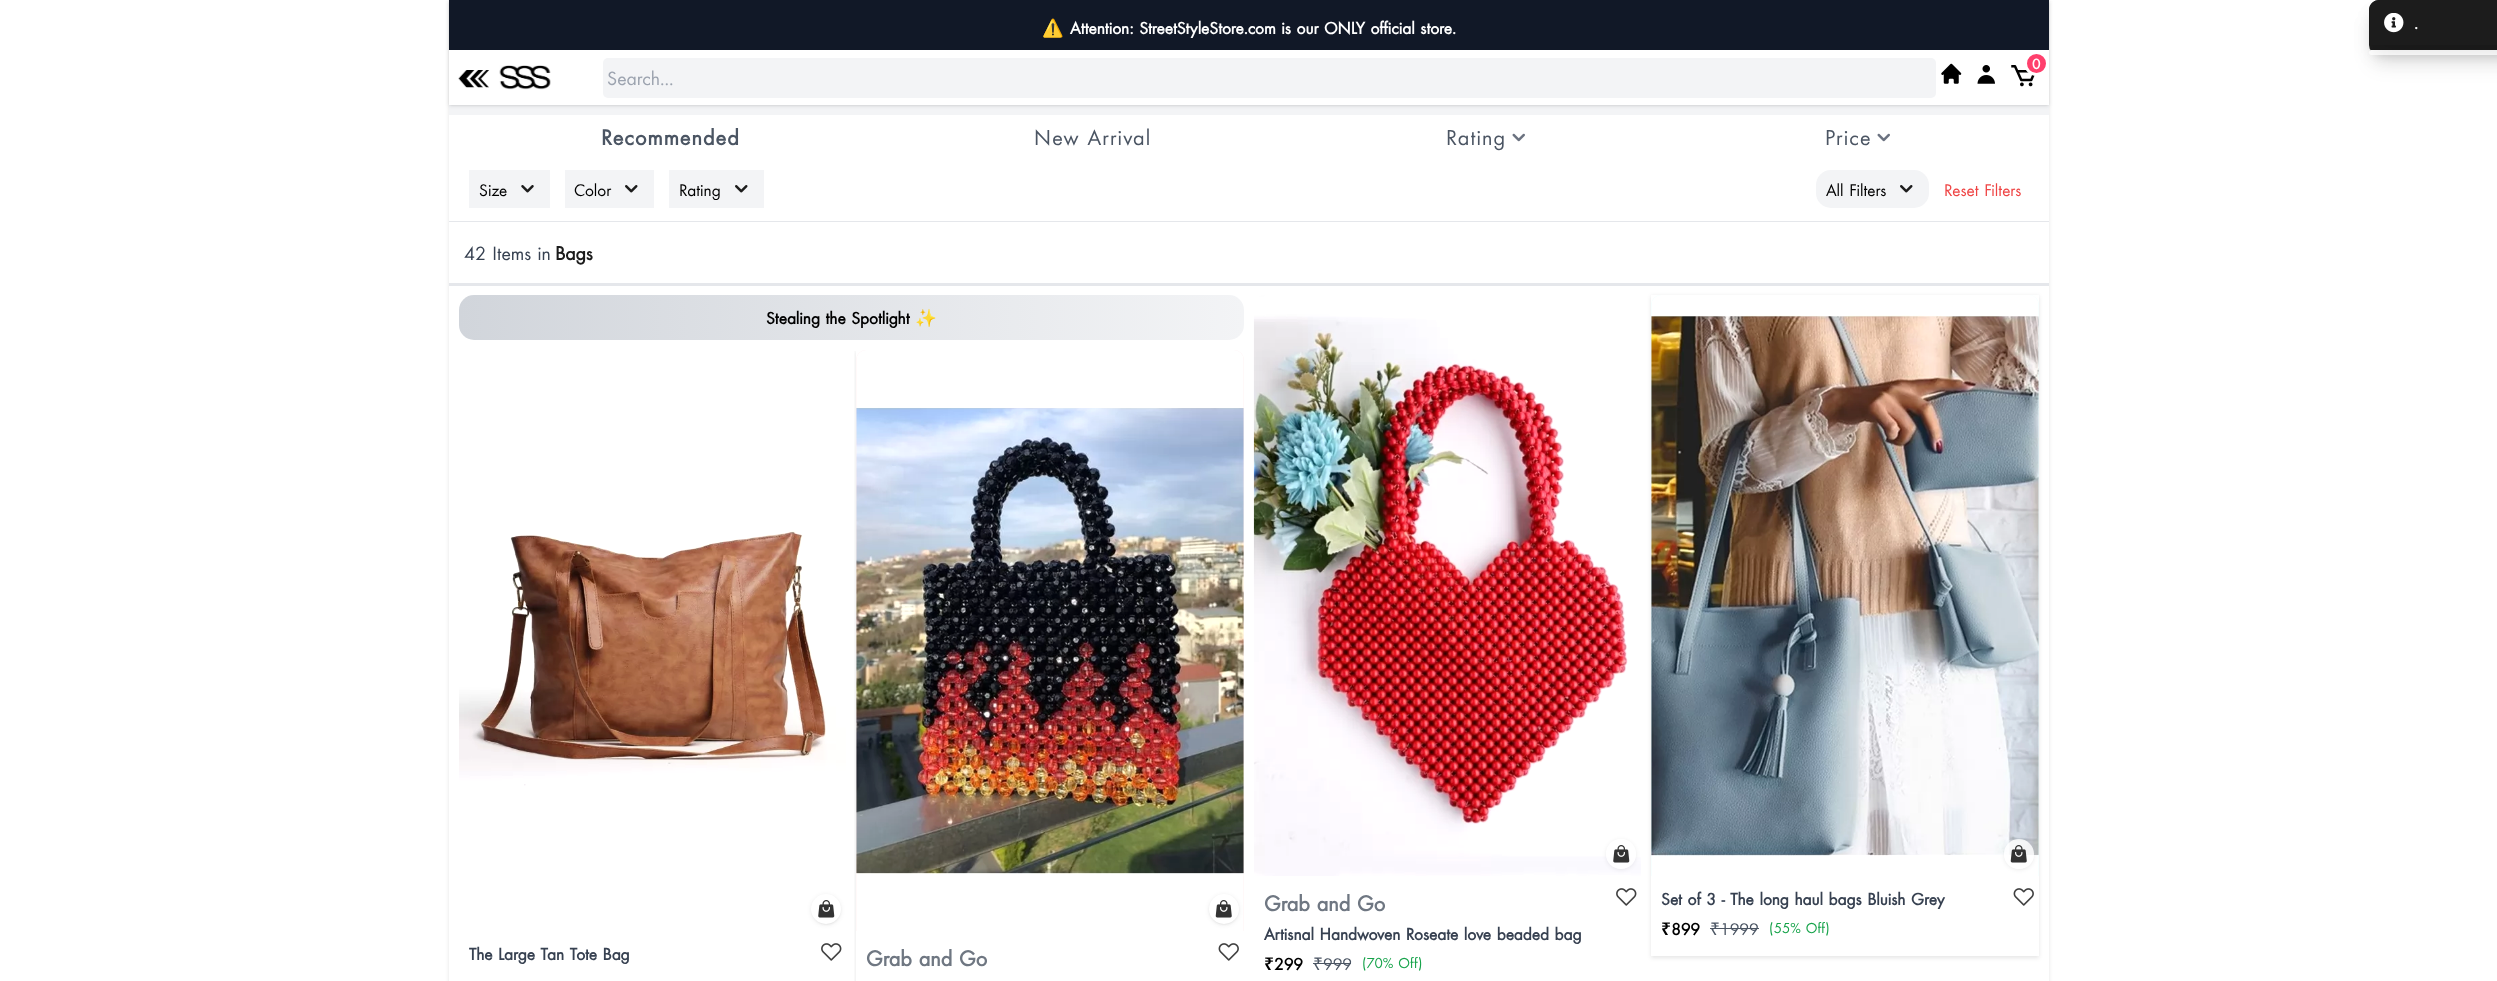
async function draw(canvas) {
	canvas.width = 2497;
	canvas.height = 981;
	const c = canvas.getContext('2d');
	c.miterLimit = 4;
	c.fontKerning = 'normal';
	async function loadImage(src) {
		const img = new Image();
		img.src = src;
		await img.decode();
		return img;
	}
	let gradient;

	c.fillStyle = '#fff';
	c.fillRect(0, 0, 2497, 981);
	c.save();
	c.beginPath();
	c.moveTo(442, 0);
	c.lineTo(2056, 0);
	c.lineTo(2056, 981);
	c.lineTo(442, 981);
	c.closePath();
	c.moveTo(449, 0);
	c.lineTo(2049, 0);
	c.lineTo(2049, 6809);
	c.lineTo(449, 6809);
	c.closePath();
	c.clip('evenodd');
	c.fillStyle = '#0000001a';
	c.filter = 'blur(2px)';
	c.beginPath();
	c.rect(449, 1, 1600, 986);
	c.fill();
	c.filter = 'none';
	c.restore();
	c.fillStyle = '#f3f4f6';
	c.fillRect(449, 105, 1600, 10);
	c.fillStyle = '#0000001a';
	c.filter = 'blur(1px)';
	c.beginPath();
	c.rect(450, 3, 1598, 102);
	c.fill();
	c.filter = 'none';
	c.filter = 'blur(2px)';
	c.beginPath();
	c.rect(449, 1, 1600, 105);
	c.fill();
	c.filter = 'none';
	c.fillStyle = '#fff';
	c.fillRect(449, 50, 1600, 55);
	c.fillStyle = '#111827';
	c.fillRect(449, 0, 1600, 50);
	c.font = 'bold 17.5px Noto Color Emoji';
	c.fillStyle = '#fff';
	c.fillText('⚠️', 1042, 34);
	c.wordSpacing = '1.25px';
	c.font = 'bold 17.5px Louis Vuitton';
	c.fillText('Attention: StreetStyleStore.com is our ONLY official store.', 1070, 34);
	c.drawImage(await loadImage('img1.png'), 458, 70, 32, 18);
	c.drawImage(await loadImage('img2.png'), 499, 65, 52, 25);
	c.fillStyle = '#f3f4f6';
	c.beginPath();
	c.roundRect(603, 58, 1333, 40, 5);
	c.fill();
	c.wordSpacing = '0px';
	c.font = '20px Louis Vuitton';
	c.fillStyle = '#9ca3af';
	c.fillText('Search...', 607, 85);
	c.drawImage(await loadImage('img3.png'), 1941, 63, 21, 21);
	c.drawImage(await loadImage('img4.png'), 1977, 65, 18, 19);
	c.drawImage(await loadImage('img5.png'), 2011, 65, 24, 22);
	c.fillStyle = '#ff3f6c';
	c.beginPath();
	c.arc(2036.5, 63.5, 11, 0, 2 * Math.PI);
	c.fill();
	c.strokeStyle = '#fff';
	c.lineWidth = 3;
	c.stroke();
	c.font = 'bold 15px Louis Vuitton';
	c.fillStyle = '#fff';
	c.fillText('0', 2032, 69);
	c.fillStyle = '#0000001a';
	c.filter = 'blur(4px)';
	c.beginPath();
	c.roundRect(2374, 10, 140, 45, 5);
	c.fill();
	c.filter = 'none';
	c.filter = 'blur(9.5px)';
	c.beginPath();
	c.roundRect(2373, 16, 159, 48, 6);
	c.fill();
	c.filter = 'none';
	c.fillStyle = '#1c1c1c';
	c.beginPath();
	c.roundRect(2369, 0, 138, 55, 10);
	c.fill();
	c.fillStyle = '#fff';
	c.beginPath();
	c.roundRect(2369, 50, 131, 5, 2.5);
	c.fill();
	c.fillStyle = '#0000001a';
	c.filter = 'blur(9.5px)';
	c.beginPath();
	c.roundRect(2373, 16, 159, 38, 6);
	c.fill();
	c.filter = 'none';
	c.fillStyle = '#1c1c1c';
	c.beginPath();
	c.moveTo(2379, 0);
	c.lineTo(2497, 0);
	c.bezierCurveTo(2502.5, 0, 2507, 4.5, 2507, 10);
	c.lineTo(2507, 45);
	c.lineTo(2369, 45);
	c.lineTo(2369, 10);
	c.bezierCurveTo(2369, 4.5, 2373.5, 0, 2379, 0);
	c.closePath();
	c.fill();
	c.drawImage(await loadImage('img6.png'), 2384, 13, 20, 20);
	c.font = 'bold 17.5px Louis Vuitton';
	c.fillStyle = '#fff';
	c.fillText('.', 2414, 29);
	c.fillRect(2048, 115, 1, 168);
	c.letterSpacing = '1.1px';
	c.font = 'bold 22.5px Louis Vuitton';
	c.fillStyle = '#4b5563';
	c.fillText('Recommended', 601, 145);
	c.wordSpacing = '1.25px';
	c.font = '22.5px Louis Vuitton';
	c.fillText('New Arrival', 1034, 145);
	c.wordSpacing = '0px';
	c.fillText('Rating', 1446, 145);
	c.drawImage(await loadImage('img7.png'), 1512, 133, 13, 9);
	c.fillText('Price', 1825, 145);
	c.drawImage(await loadImage('img7.png'), 1877, 133, 13, 9);
	c.fillStyle = '#e5e7eb';
	c.fillRect(449, 221, 1600, 1);
	c.fillStyle = '#f3f4f6';
	c.fillRect(469, 170, 81, 38);
	c.letterSpacing = '0px';
	c.font = '17.5px Louis Vuitton';
	c.fillStyle = '#000';
	c.fillText('Size', 479, 196);
	c.drawImage(await loadImage('img8.png'), 521, 185, 13, 8);
	c.fillStyle = '#f3f4f6';
	c.fillRect(565, 170, 89, 38);
	c.fillStyle = '#000';
	c.fillText('Color', 574, 196);
	c.drawImage(await loadImage('img9.png'), 625, 185, 13, 8);
	c.fillStyle = '#f3f4f6';
	c.fillRect(669, 170, 95, 38);
	c.fillStyle = '#000';
	c.fillText('Rating', 679, 196);
	c.drawImage(await loadImage('img9.png'), 735, 185, 13, 8);
	c.fillStyle = '#f3f4f6';
	c.beginPath();
	c.roundRect(1816, 170, 113, 38, 15);
	c.fill();
	c.wordSpacing = '1.25px';
	c.fillStyle = '#000';
	c.fillText('All Filters', 1826, 196);
	c.drawImage(await loadImage('img9.png'), 1900, 185, 13, 8);
	c.fillStyle = '#ef4444';
	c.fillText('Reset Filters', 1944, 196);
	c.fillStyle = '#e5e7eb';
	c.fillRect(449, 283, 1600, 3);
	c.font = '20px Louis Vuitton';
	c.fillStyle = '#374151';
	c.fillText('42 Items in', 464, 260);
	c.wordSpacing = '0px';
	c.font = 'bold 20px Louis Vuitton';
	c.fillStyle = '#1c1c1c';
	c.fillText('Bags', 555, 260);
	gradient = c.createLinearGradient(459, 318, 1244, 317);
	gradient.addColorStop(0, '#d1d5db');
	gradient.addColorStop(1, '#f3f4f6');
	c.fillStyle = gradient;
	c.beginPath();
	c.roundRect(459, 295, 785, 45, 15);
	c.fill();
	c.wordSpacing = '1.25px';
	c.font = 'bold 17.5px Louis Vuitton';
	c.fillStyle = '#000';
	c.fillText('Stealing the Spotlight', 766, 324);
	c.wordSpacing = '0px';
	c.font = 'bold 17.5px Noto Color Emoji';
	c.fillStyle = '#f00';
	c.fillText('✨', 915, 324);
	c.drawImage(await loadImage('img10.png'), 459, 350, 387, 581);
	c.fillStyle = '#3333331a';
	c.filter = 'blur(1px)';
	c.beginPath();
	c.roundRect(813, 896, 27, 28, 13.5);
	c.fill();
	c.filter = 'none';
	c.filter = 'blur(2px)';
	c.beginPath();
	c.roundRect(811, 895, 30, 30, 15);
	c.fill();
	c.filter = 'none';
	c.fillStyle = '#fff';
	c.beginPath();
	c.arc(826, 909, 15, 0, 2 * Math.PI);
	c.fill();
	c.drawImage(await loadImage('img11.png'), 818, 900, 17, 18);
	c.wordSpacing = '1.25px';
	c.font = 'bold 17.5px Louis Vuitton';
	c.fillStyle = '#374151';
	c.fillText('The Large Tan Tote Bag', 469, 960);
	c.drawImage(await loadImage('img12.png'), 821, 943, 21, 18);
	c.save();
	c.beginPath();
	c.rect(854, 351, 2, 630);
	c.clip();
	c.fillStyle = '#0000001a';
	c.filter = 'blur(2px)';
	c.beginPath();
	c.rect(856, 351, 388, 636);
	c.fill();
	c.filter = 'none';
	c.restore();
	c.fillStyle = '#ffcad247';
	c.beginPath();
	c.roundRect(856, 350, 388, 581, [10, 10, 0, 0]);
	c.fill();
	c.drawImage(await loadImage('img13.png'), 856, 350, 388, 581);
	c.fillStyle = '#3333331a';
	c.filter = 'blur(1px)';
	c.beginPath();
	c.roundRect(1210, 896, 28, 28, 14);
	c.fill();
	c.filter = 'none';
	c.filter = 'blur(2px)';
	c.beginPath();
	c.roundRect(1209, 895, 30, 30, 15);
	c.fill();
	c.filter = 'none';
	c.fillStyle = '#fff';
	c.beginPath();
	c.arc(1224, 909, 15, 0, 2 * Math.PI);
	c.fill();
	c.drawImage(await loadImage('img14.png'), 1215, 900, 17, 18);
	c.fillRect(856, 931, 388, 50);
	c.font = 'bold 22.5px Louis Vuitton';
	c.fillStyle = '#6f7782';
	c.fillText('Grab and Go', 866, 966);
	c.drawImage(await loadImage('img15.png'), 1218, 943, 21, 18);
	c.drawImage(await loadImage('img16.png'), 1253, 295, 388, 581);
	c.save();
	c.beginPath();
	c.moveTo(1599, 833);
	c.lineTo(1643, 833);
	c.lineTo(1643, 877);
	c.lineTo(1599, 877);
	c.closePath();
	c.moveTo(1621, 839);
	c.bezierCurveTo(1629.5, 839, 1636, 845.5, 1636, 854);
	c.bezierCurveTo(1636, 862.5, 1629.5, 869, 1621, 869);
	c.bezierCurveTo(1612.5, 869, 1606, 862.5, 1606, 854);
	c.bezierCurveTo(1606, 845.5, 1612.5, 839, 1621, 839);
	c.closePath();
	c.clip('evenodd');
	c.fillStyle = '#00000014';
	c.filter = 'blur(2px)';
	c.beginPath();
	c.roundRect(1606, 840, 30, 30, 15);
	c.fill();
	c.filter = 'none';
	c.restore();
	c.fillStyle = '#ffffffcc';
	c.beginPath();
	c.arc(1621, 854, 15, 0, 2 * Math.PI);
	c.fill();
	c.drawImage(await loadImage('img17.png'), 1613, 845, 17, 18);
	c.fillStyle = '#6f7782';
	c.fillText('Grab and Go', 1264, 911);
	c.drawImage(await loadImage('img12.png'), 1616, 888, 21, 18);
	c.font = 'bold 17.5px Louis Vuitton';
	c.fillStyle = '#374151';
	c.fillText('Artisnal Handwoven Roseate love beaded bag', 1264, 940);
	c.wordSpacing = '0px';
	c.font = '600 17.5px Noto Sans';
	c.fillStyle = '#000';
	c.fillText('₹', 1264, 970);
	c.font = 'bold 17.5px Louis Vuitton';
	c.fillText('299', 1274, 970);
	c.font = '17.5px Noto Sans';
	c.fillStyle = '#4b5563';
	c.fillText('₹', 1313, 970);
	c.fillRect(1313, 963, 38, 1);
	c.font = '17.5px Louis Vuitton';
	c.fillText('999', 1323, 970);
	c.wordSpacing = '1.25px';
	c.font = '15px Louis Vuitton';
	c.fillStyle = '#16a34a';
	c.fillText('(70% Off)', 1362, 968);
	c.save();
	c.beginPath();
	c.moveTo(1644, 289);
	c.lineTo(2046, 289);
	c.lineTo(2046, 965);
	c.lineTo(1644, 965);
	c.closePath();
	c.moveTo(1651, 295);
	c.lineTo(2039, 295);
	c.lineTo(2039, 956);
	c.lineTo(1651, 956);
	c.closePath();
	c.clip('evenodd');
	c.fillStyle = '#0000001a';
	c.filter = 'blur(2px)';
	c.beginPath();
	c.rect(1651, 296, 388, 662);
	c.fill();
	c.filter = 'none';
	c.restore();
	c.fillStyle = '#edffff';
	c.beginPath();
	c.roundRect(1651, 295, 388, 581, [10, 10, 0, 0]);
	c.fill();
	c.drawImage(await loadImage('img18.png'), 1651, 295, 388, 581);
	c.save();
	c.beginPath();
	c.moveTo(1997, 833);
	c.lineTo(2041, 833);
	c.lineTo(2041, 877);
	c.lineTo(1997, 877);
	c.closePath();
	c.moveTo(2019, 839);
	c.bezierCurveTo(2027.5, 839, 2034, 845.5, 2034, 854);
	c.bezierCurveTo(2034, 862.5, 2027.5, 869, 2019, 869);
	c.bezierCurveTo(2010.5, 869, 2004, 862.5, 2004, 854);
	c.bezierCurveTo(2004, 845.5, 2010.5, 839, 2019, 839);
	c.closePath();
	c.clip('evenodd');
	c.fillStyle = '#00000014';
	c.filter = 'blur(2px)';
	c.beginPath();
	c.roundRect(2004, 840, 30, 30, 15);
	c.fill();
	c.filter = 'none';
	c.restore();
	c.fillStyle = '#ffffffcc';
	c.beginPath();
	c.arc(2019, 854, 15, 0, 2 * Math.PI);
	c.fill();
	c.drawImage(await loadImage('img19.png'), 2010, 845, 17, 18);
	c.fillStyle = '#fff';
	c.beginPath();
	c.roundRect(1651, 876, 388, 80, [0, 0, 10, 10]);
	c.fill();
	c.font = 'bold 17.5px Louis Vuitton';
	c.fillStyle = '#374151';
	c.fillText('Set of 3 - The long haul bags Bluish Grey', 1661, 905);
	c.drawImage(await loadImage('img15.png'), 2013, 888, 21, 18);
	c.wordSpacing = '0px';
	c.font = '600 17.5px Noto Sans';
	c.fillStyle = '#000';
	c.fillText('₹', 1661, 935);
	c.font = 'bold 17.5px Louis Vuitton';
	c.fillText('899', 1671, 935);
	c.font = '17.5px Noto Sans';
	c.fillStyle = '#4b5563';
	c.fillText('₹', 1710, 935);
	c.fillRect(1710, 928, 49, 1);
	c.font = '17.5px Louis Vuitton';
	c.fillText('1999', 1720, 935);
	c.wordSpacing = '1.25px';
	c.font = '15px Louis Vuitton';
	c.fillStyle = '#16a34a';
	c.fillText('(55% Off)', 1769, 933);
}

draw(document.querySelector('canvas'));
